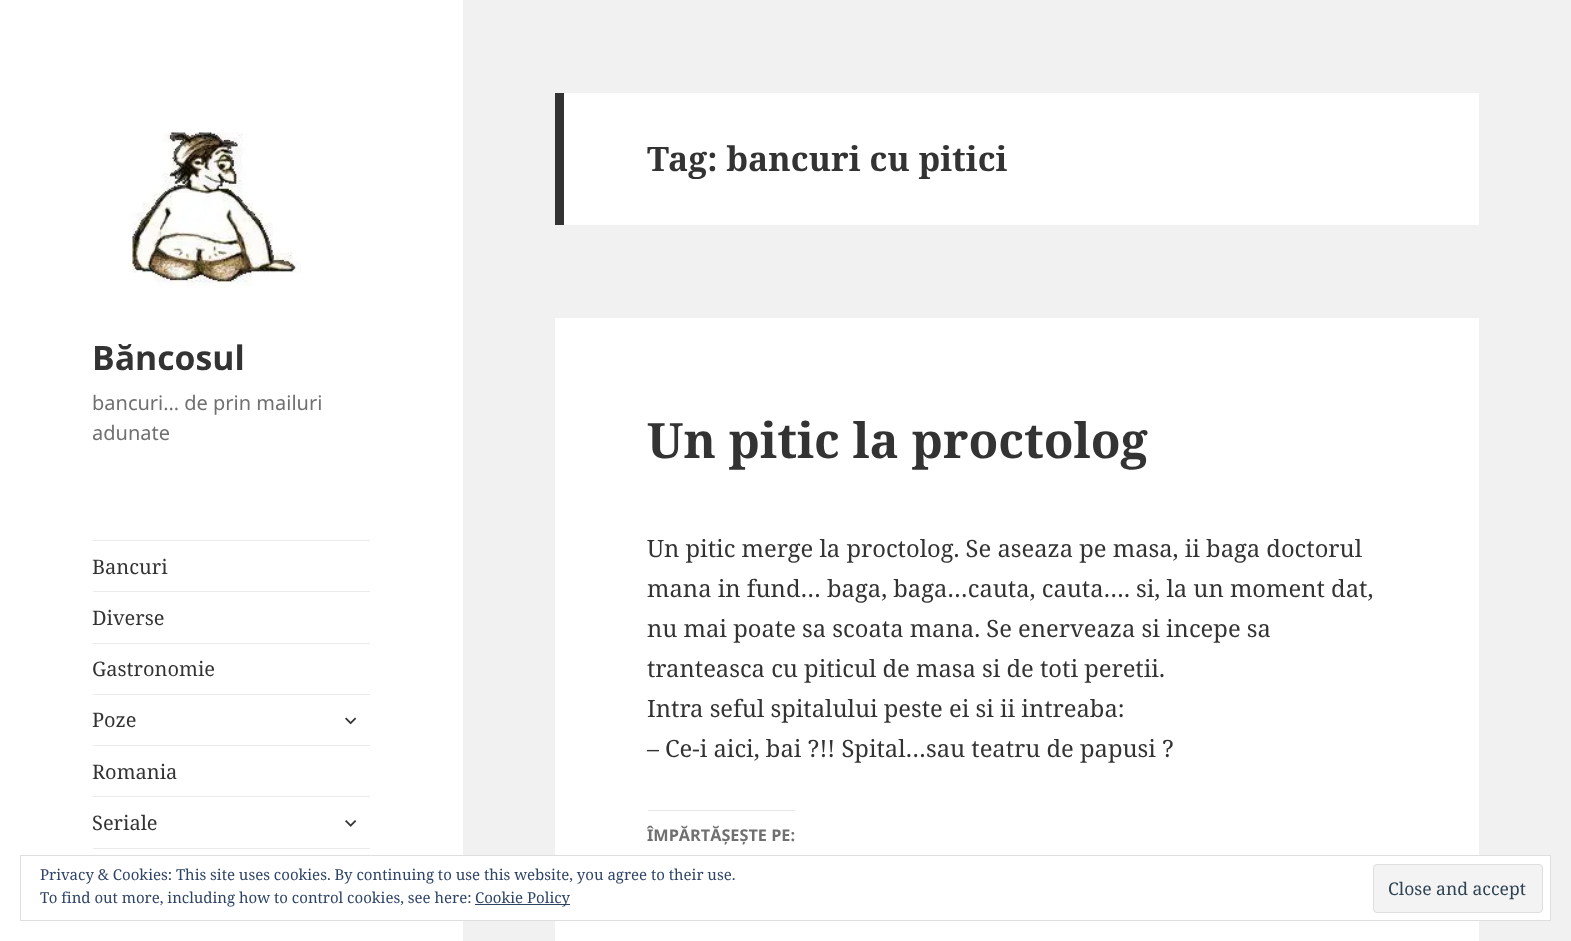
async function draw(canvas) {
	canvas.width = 1571;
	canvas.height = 941;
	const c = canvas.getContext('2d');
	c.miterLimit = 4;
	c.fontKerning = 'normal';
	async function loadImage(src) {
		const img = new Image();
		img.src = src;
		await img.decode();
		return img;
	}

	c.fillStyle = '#f1f1f1';
	c.fillRect(0, 0, 1571, 941);
	c.fillStyle = '#fff';
	c.fillRect(0, 0, 463, 941);
	c.drawImage(await loadImage('img1.png'), 128, 132, 173, 154);
	c.font = 'bold 33.75px Noto Sans';
	c.fillStyle = '#333';
	c.fillText('Băncosul', 92, 370);
	c.font = '20px Noto Sans';
	c.fillStyle = '#707070';
	c.fillText('bancuri… de prin mailuri', 92, 410);
	c.fillText('adunate', 92, 440);
	c.fillStyle = '#ebebeb';
	c.fillRect(93, 540, 277, 1);
	c.font = '20px Noto Serif';
	c.fillStyle = '#333';
	c.fillText('Bancuri', 92, 574);
	c.fillStyle = '#ebebeb';
	c.fillRect(93, 591, 277, 1);
	c.fillStyle = '#333';
	c.fillText('Diverse', 92, 625);
	c.fillStyle = '#ebebeb';
	c.fillRect(93, 643, 277, 1);
	c.fillStyle = '#333';
	c.fillText('Gastronomie', 92, 676);
	c.fillStyle = '#ebebeb';
	c.fillRect(93, 694, 277, 1);
	c.fillStyle = '#333';
	c.fillText('Poze', 92, 727);
	c.drawImage(await loadImage('img2.png'), 345, 717, 12, 8);
	c.fillStyle = '#ebebeb';
	c.fillRect(93, 745, 277, 1);
	c.fillStyle = '#333';
	c.fillText('Romania', 92, 779);
	c.fillStyle = '#ebebeb';
	c.fillRect(93, 796, 277, 1);
	c.fillStyle = '#333';
	c.fillText('Seriale', 92, 830);
	c.drawImage(await loadImage('img3.png'), 345, 820, 12, 7);
	for (const [x, y, w, h, color] of [
		[93, 848, 277, 1, '#ebebeb'],
		[564, 93, 915, 132, '#fff'],
		[555, 93, 9, 132, '#333'],
	]) {
		c.fillStyle = color;
		c.fillRect(x, y, w, h);
	}
	c.font = 'bold 33.75px Noto Serif';
	c.fillText('Tag: bancuri cu pitici', 647, 171);
	c.fillStyle = '#fff';
	c.fillRect(555, 318, 924, 623);
	c.font = 'bold 48.75px Noto Serif';
	c.fillStyle = '#333';
	c.fillText('Un pitic la proctolog', 647, 458);
	c.font = '23.75px Noto Serif';
	for (const [text, x, y] of [
		['Un pitic merge la proctolog. Se aseaza pe masa, ii baga doctorul', 647, 557],
		['mana in fund… baga, baga…cauta, cauta…. si, la un moment dat,', 647, 597],
		['nu mai poate sa scoata mana. Se enerveaza si incepe sa', 647, 637],
		['tranteasca cu piticul de masa si de toti peretii.', 647, 677],
		['Intra seful spitalului peste ei si ii intreaba:', 647, 717],
		['– Ce-i aici, bai ?!! Spital…sau teatru de papusi ?', 647, 757],
	]) {
		c.fillText(text, x, y);
	}
	c.fillStyle = '#e7e7e8';
	c.fillRect(648, 810, 147, 1);
	c.font = 'bold 16.25px Noto Sans';
	c.fillStyle = '#707070';
	c.fillText('ÎMPĂRTĂȘEȘTE PE:', 647, 841);
	c.fillStyle = '#fff';
	c.fillRect(463, 856, 1087, 64);
	c.strokeStyle = '#dedede';
	c.strokeRect(20.5, 855.5, 1530, 65);
	c.font = '15px Noto Serif';
	c.fillStyle = '#2e4467';
	c.fillText('Privacy & Cookies: This site uses cookies. By continuing to use this website, you agree to their use.', 40, 880);
	c.fillText('To find out more, including how to control cookies, see here:', 40, 903);
	c.fillRect(475, 904, 95, 1);
	c.fillText('Cookie Policy', 475, 903);
	c.fillStyle = '#f3f3f3';
	c.beginPath();
	c.roundRect(1373.5, 864.5, 169, 48, 3.5);
	c.fill();
	c.stroke();
	c.font = '17.5px Noto Serif';
	c.fillStyle = '#2e4453';
	c.fillText('Close and accept', 1388, 895);
}

draw(document.querySelector('canvas'));
